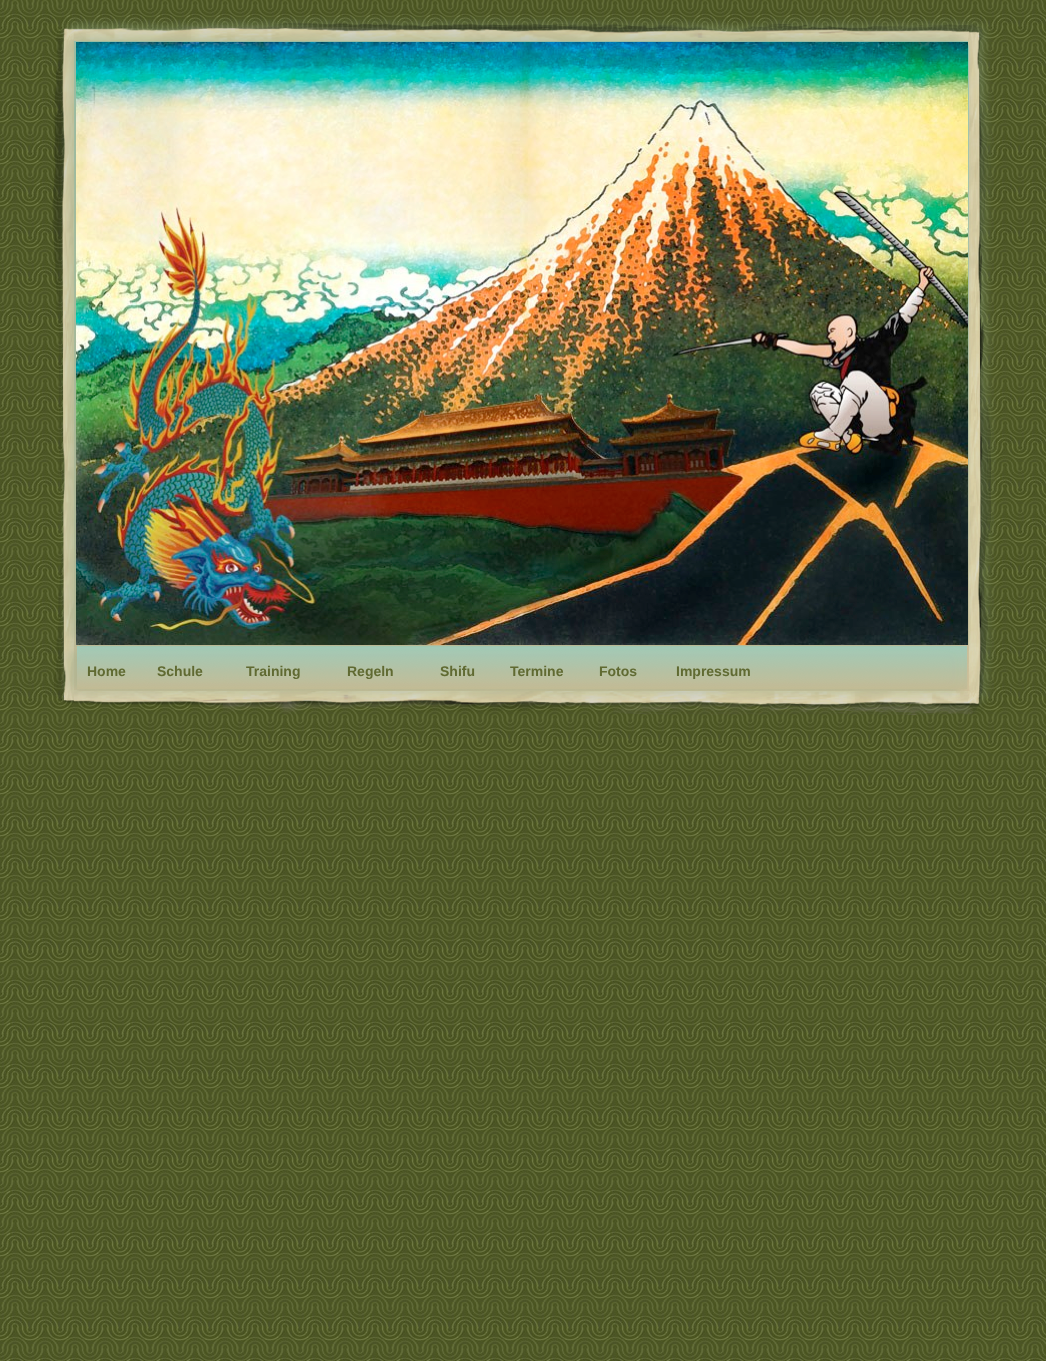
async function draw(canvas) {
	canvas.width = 1046;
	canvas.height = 1361;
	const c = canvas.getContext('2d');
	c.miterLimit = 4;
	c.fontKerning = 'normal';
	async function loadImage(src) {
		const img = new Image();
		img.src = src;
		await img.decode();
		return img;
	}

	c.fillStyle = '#fff';
	c.fillRect(0, 0, 1046, 1361);
	c.drawImage(await loadImage('img1.png'), 0, 0, 1046, 1361);
	c.drawImage(await loadImage('img2.png'), 52, 16, 944, 699);
	c.drawImage(await loadImage('img4.png'), 61, 641, 907, 59);
	c.drawImage(await loadImage('img3.png'), 61, 29, 910, 618);
	c.font = 'bold 14px Liberation Sans';
	c.fillStyle = '#606a32';
	for (const [text, x, y] of [
		['Home', 87, 676],
		['Schule', 157, 676],
		['Training', 246, 676],
		['Regeln', 347, 676],
		['Shifu', 440, 676],
		['Termine', 510, 676],
		['Fotos', 599, 676],
		['Impressum', 676, 676],
	]) {
		c.fillText(text, x, y);
	}
}

draw(document.querySelector('canvas'));
